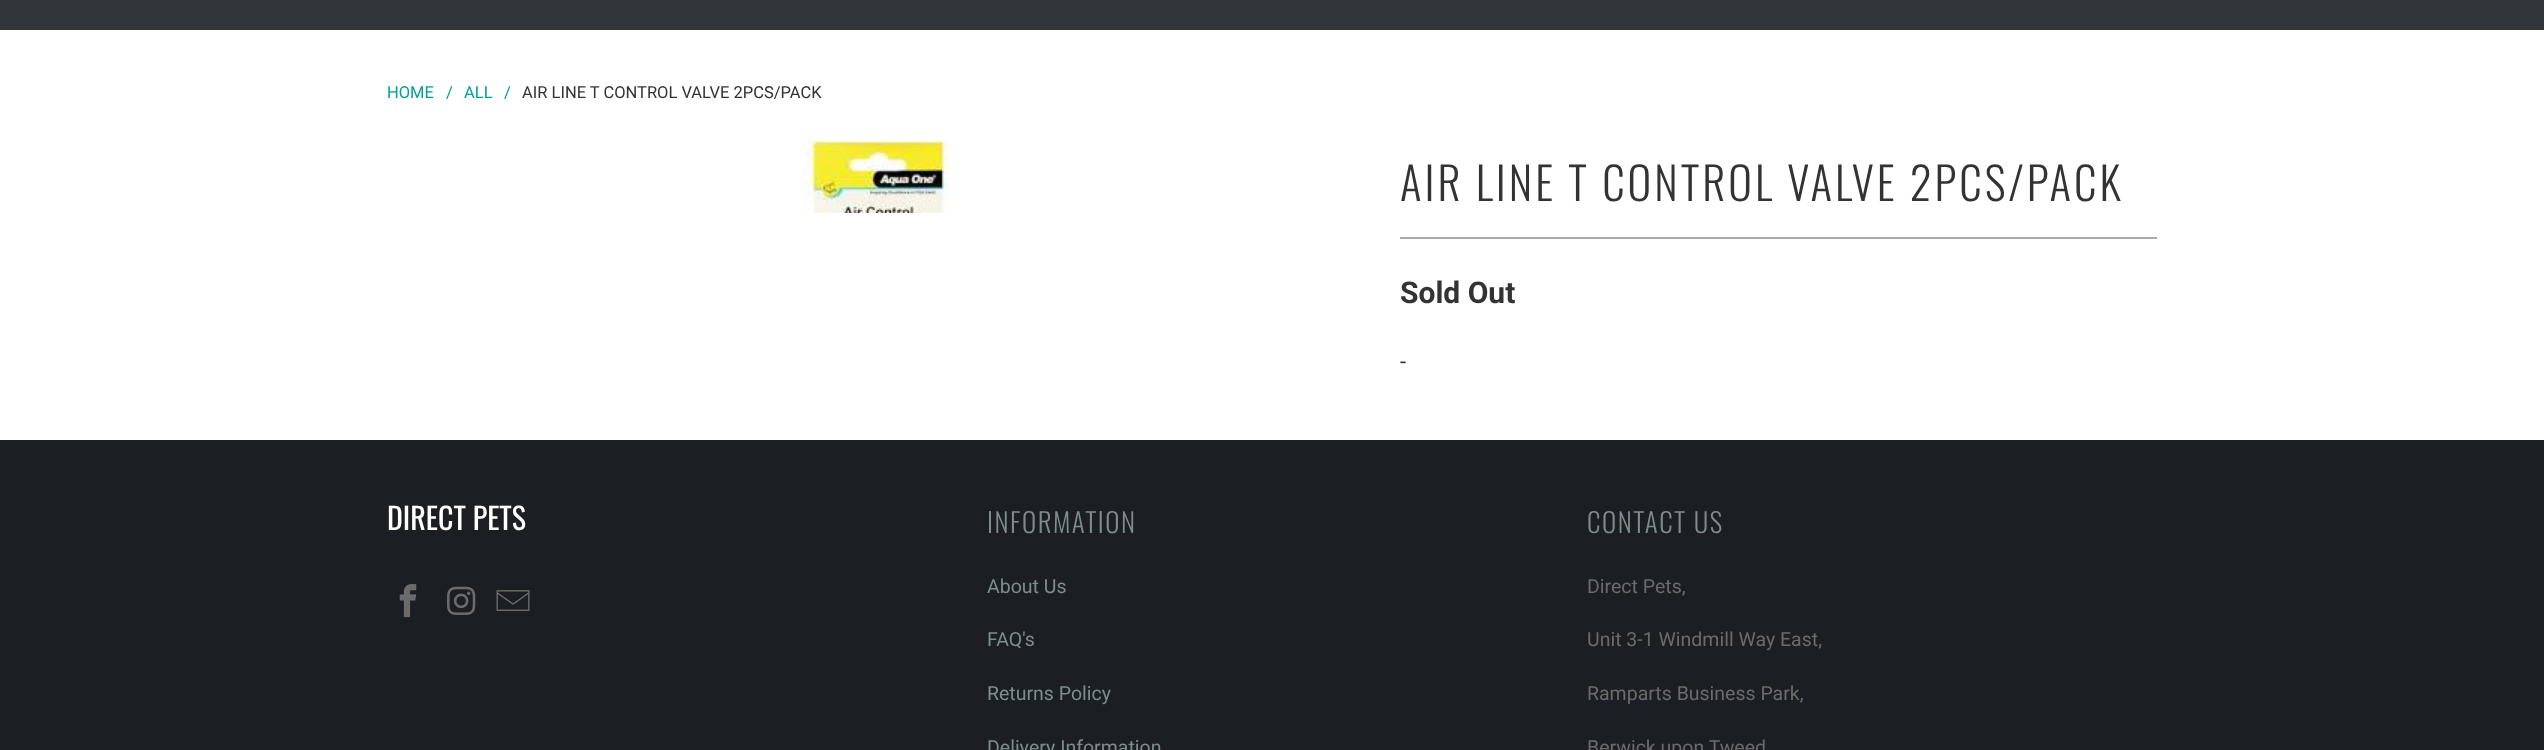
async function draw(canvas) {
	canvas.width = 2544;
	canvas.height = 750;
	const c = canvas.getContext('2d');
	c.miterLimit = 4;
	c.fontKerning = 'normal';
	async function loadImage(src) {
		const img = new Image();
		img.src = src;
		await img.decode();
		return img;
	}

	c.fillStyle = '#fff';
	c.fillRect(0, 0, 2544, 750);
	c.fillStyle = '#323539';
	c.fillRect(0, 0, 2544, 30);
	c.font = '16.5px Roboto';
	c.fillStyle = '#03a196';
	for (const [text, x, y] of [
		['HOME', 387, 98],
		['/', 446, 98],
		['ALL', 464, 98],
		['/', 504, 98],
	]) {
		c.fillText(text, x, y);
	}
	c.fillStyle = '#333';
	c.fillText('AIR LINE T CONTROL VALVE 2PCS/PACK', 522, 98);
	c.drawImage(await loadImage('img1.png'), 803, 141, 147, 72);
	c.letterSpacing = '3px';
	c.font = '300 45px Oswald';
	c.fillText('AIR LINE T CONTROL VALVE 2PCS/PACK', 1400, 201);
	c.fillStyle = '#aaa';
	c.fillRect(1400, 237, 757, 2);
	c.letterSpacing = '0px';
	c.font = 'bold 30px Roboto';
	c.fillStyle = '#333';
	c.fillText('Sold Out', 1400, 303);
	c.font = '22px Roboto';
	c.fillText('-', 1400, 369);
	c.fillStyle = '#1b1f23';
	c.fillRect(0, 440, 2544, 310);
	c.font = '30px Oswald';
	c.fillStyle = '#fff';
	c.fillText('DIRECT PETS', 387, 530);
	c.drawImage(await loadImage('img2.png'), 399, 584, 18, 34);
	c.drawImage(await loadImage('img3.png'), 447, 586, 29, 29);
	c.drawImage(await loadImage('img4.png'), 496, 590, 34, 21);
	c.letterSpacing = '1.5px';
	c.font = '300 27px Oswald';
	c.fillStyle = '#7f8c8d';
	c.fillText('INFORMATION', 987, 533);
	c.letterSpacing = '0px';
	c.font = '19.5px Roboto';
	for (const [text, x, y] of [
		['About Us', 987, 593],
		['FAQ\'s', 987, 646],
		['Returns Policy', 987, 700],
		['Delivery Information', 987, 754],
	]) {
		c.fillText(text, x, y);
	}
	c.letterSpacing = '1.5px';
	c.font = '300 27px Oswald';
	c.fillText('CONTACT US', 1587, 533);
	c.letterSpacing = '0px';
	c.font = '19.5px Roboto';
	c.fillStyle = '#6b6b6b';
	for (const [text, x, y] of [
		['Direct Pets,', 1587, 593],
		['Unit 3-1 Windmill Way East,', 1587, 646],
		['Ramparts Business Park,', 1587, 700],
		['Berwick upon Tweed', 1587, 754],
	]) {
		c.fillText(text, x, y);
	}
}

draw(document.querySelector('canvas'));
